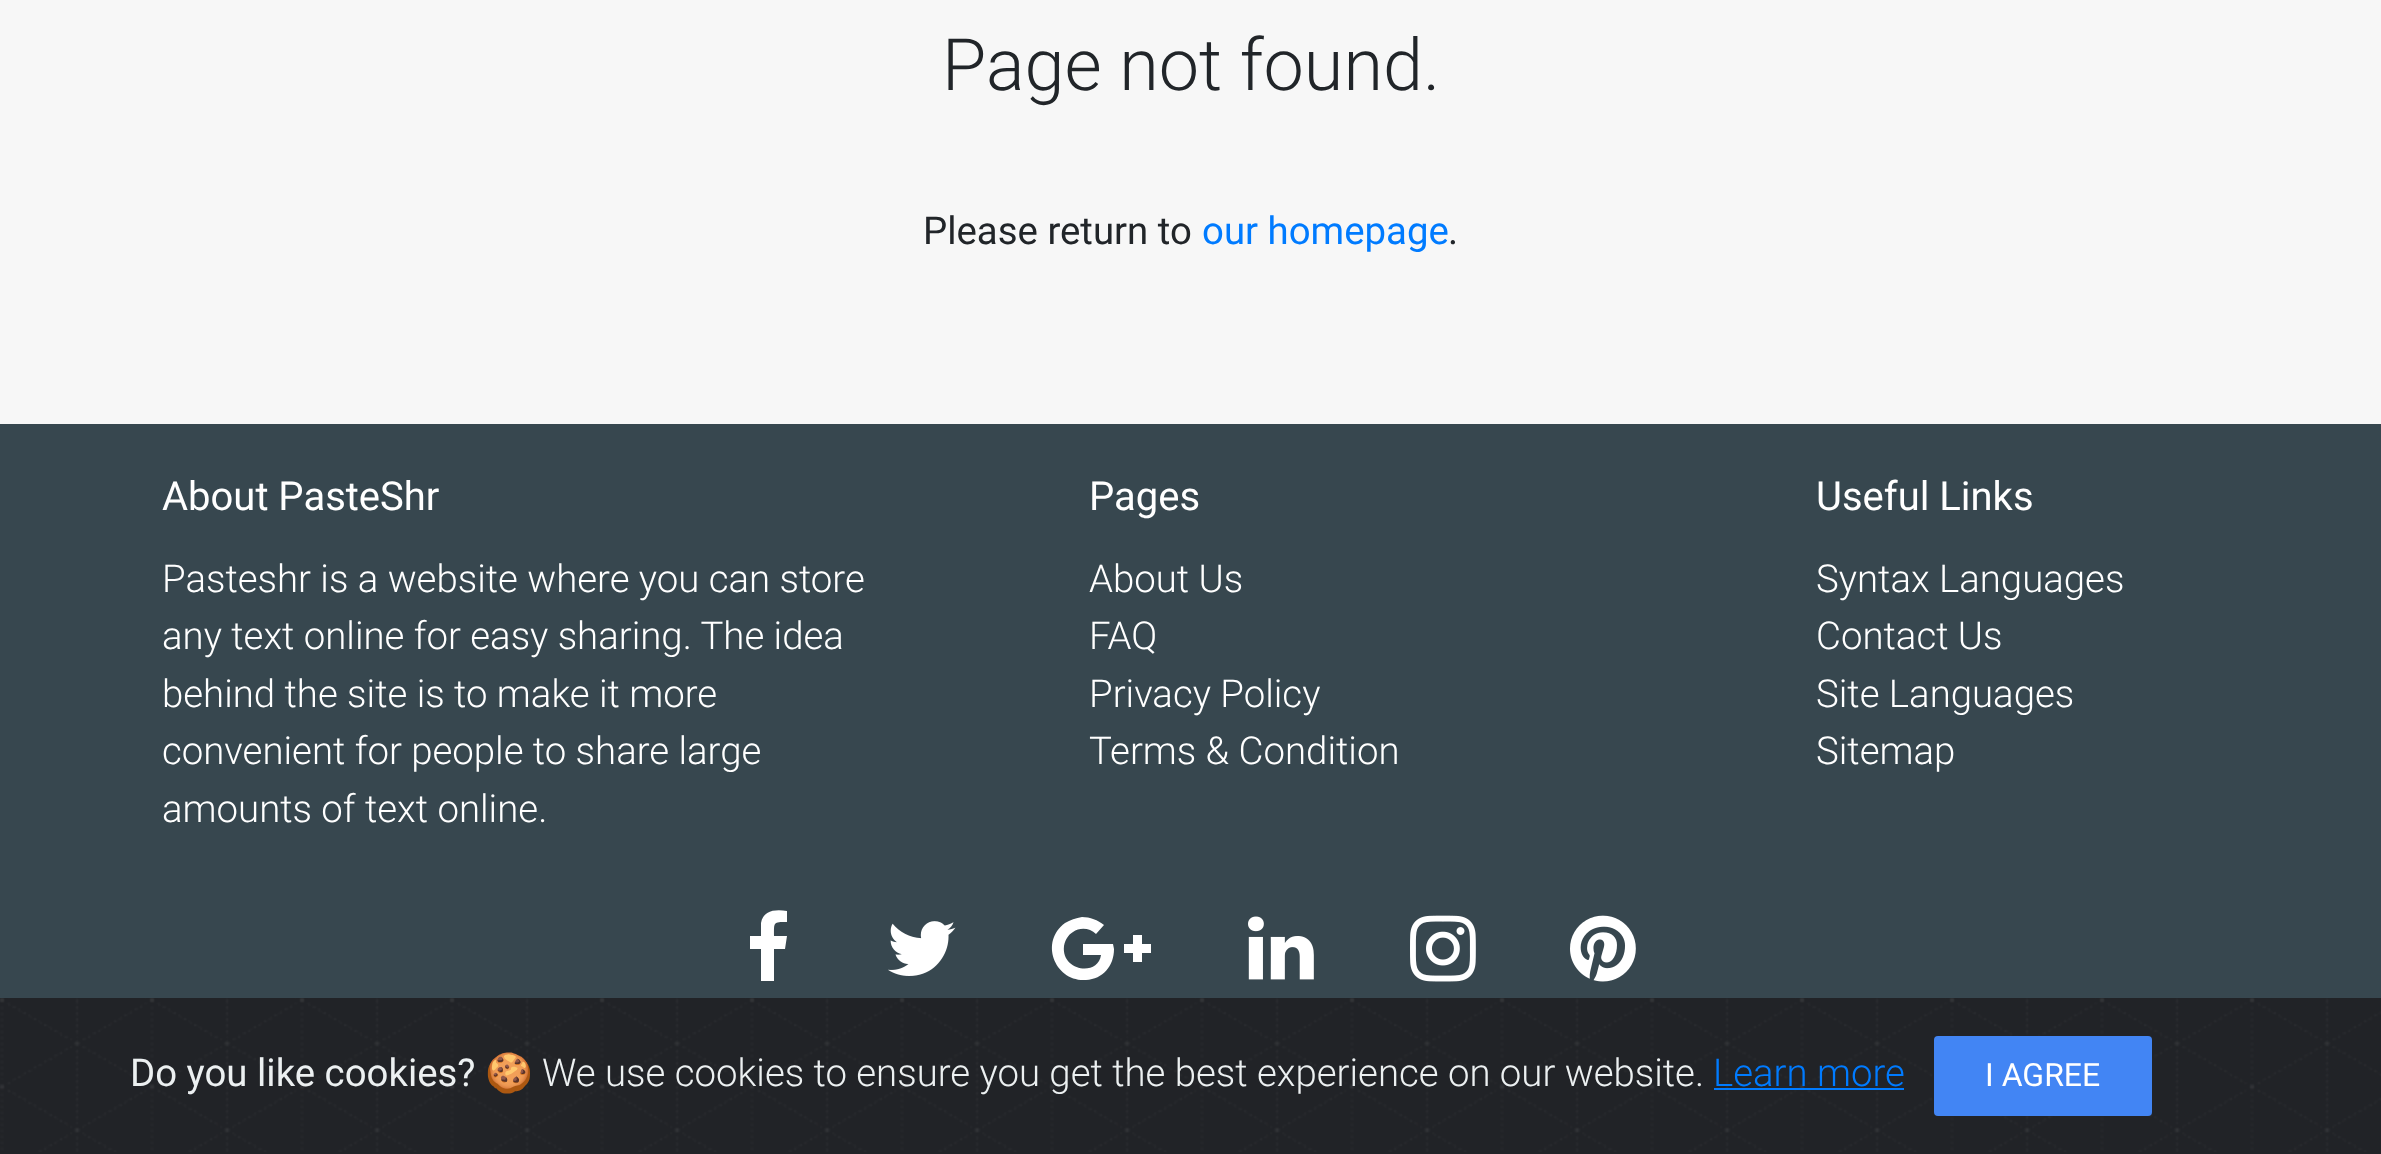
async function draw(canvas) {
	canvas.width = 2381;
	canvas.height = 1154;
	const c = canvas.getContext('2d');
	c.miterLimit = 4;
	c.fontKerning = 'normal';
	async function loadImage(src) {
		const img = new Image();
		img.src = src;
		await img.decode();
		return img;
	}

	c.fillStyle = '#f7f7f7';
	c.fillRect(0, 0, 2381, 1154);
	c.font = '300 72px Roboto';
	c.fillStyle = '#212529';
	c.fillText('Page not found.', 942, 90);
	c.font = '38.4px Roboto';
	c.fillText('Please return to', 923, 244);
	c.fillStyle = '#007bff';
	c.fillText('our homepage', 1202, 244);
	c.fillStyle = '#212529';
	c.fillText('.', 1448, 244);
	c.fillStyle = '#37474f';
	c.fillRect(0, 424, 2381, 574);
	c.font = '40px Roboto';
	c.fillStyle = '#fff';
	c.fillText('About PasteShr', 162, 510);
	c.font = '300 38.4px Roboto';
	for (const [text, x, y] of [
		['Pasteshr is a website where you can store', 162, 592],
		['any text online for easy sharing. The idea', 162, 649],
		['behind the site is to make it more', 162, 707],
		['convenient for people to share large', 162, 764],
		['amounts of text online.', 162, 822],
	]) {
		c.fillText(text, x, y);
	}
	c.font = '40px Roboto';
	c.fillText('Pages', 1089, 510);
	c.font = '300 38.4px Roboto';
	for (const [text, x, y] of [
		['About Us', 1089, 592],
		['FAQ', 1089, 649],
		['Privacy Policy', 1089, 707],
		['Terms & Condition', 1089, 764],
	]) {
		c.fillText(text, x, y);
	}
	c.font = '40px Roboto';
	c.fillText('Useful Links', 1816, 510);
	c.font = '300 38.4px Roboto';
	for (const [text, x, y] of [
		['Syntax Languages', 1816, 592],
		['Contact Us', 1816, 649],
		['Site Languages', 1816, 707],
		['Sitemap', 1816, 764],
	]) {
		c.fillText(text, x, y);
	}
	c.beginPath();
	c.moveTo(787, 911);
	c.lineTo(787, 922);
	c.bezierCurveTo(773, 922, 774, 922, 774, 936);
	c.lineTo(787, 936);
	c.lineTo(785, 949);
	c.lineTo(774, 949);
	c.lineTo(774, 981);
	c.lineTo(761, 981);
	c.lineTo(761, 949);
	c.lineTo(750, 949);
	c.lineTo(750, 936);
	c.lineTo(761, 936);
	c.lineTo(761, 923);
	c.bezierCurveTo(763, 910, 776, 909, 787, 911);
	c.closePath();
	c.fill();
	c.drawImage(await loadImage('img1.png'), 888, 921, 68, 55);
	c.beginPath();
	c.moveTo(1114, 949);
	c.bezierCurveTo(1114, 966, 1103, 979, 1086, 980);
	c.bezierCurveTo(1055, 982, 1039, 942, 1065, 923);
	c.bezierCurveTo(1070, 920, 1076, 918, 1082, 917);
	c.bezierCurveTo(1090, 917, 1098, 920, 1104, 925);
	c.lineTo(1096, 934);
	c.bezierCurveTo(1090, 928, 1080, 927, 1073, 932);
	c.bezierCurveTo(1068, 935, 1065, 940, 1064, 946);
	c.bezierCurveTo(1061, 971, 1098, 977, 1101, 955);
	c.lineTo(1083, 955);
	c.lineTo(1083, 944);
	c.lineTo(1113, 944);
	c.closePath();
	c.moveTo(1151, 944);
	c.lineTo(1151, 953);
	c.lineTo(1142, 953);
	c.lineTo(1142, 962);
	c.lineTo(1133, 962);
	c.lineTo(1133, 953);
	c.lineTo(1124, 953);
	c.lineTo(1124, 944);
	c.lineTo(1133, 944);
	c.lineTo(1133, 935);
	c.lineTo(1142, 935);
	c.lineTo(1142, 944);
	c.closePath();
	c.fill();
	c.drawImage(await loadImage('img2.png'), 1248, 916, 66, 64);
	c.drawImage(await loadImage('img3.png'), 1410, 915, 66, 67);
	c.drawImage(await loadImage('img4.png'), 1570, 915, 66, 67);
	c.fillStyle = '#212327';
	c.fillRect(0, 1152, 2381, 2);
	c.drawImage(await loadImage('img5.png'), 0, 998, 2381, 154);
	c.font = '38.4px Roboto';
	c.fillStyle = '#ecf0f1';
	c.fillText('Do you like cookies?', 130, 1086);
	c.font = '38.4px Noto Color Emoji';
	c.fillText('🍪', 485, 1086);
	c.font = '300 38.4px Roboto';
	c.fillText('We use cookies to ensure you get the best experience on our website.', 542, 1086);
	c.fillStyle = '#007bff';
	c.fillText('Learn more', 1713, 1086);
	c.fillRect(1714, 1088, 190, 2);
	c.fillStyle = '#4285f4';
	c.beginPath();
	c.roundRect(1934, 1036, 218, 80, 4);
	c.fill();
	c.font = '32px Roboto';
	c.fillStyle = '#fff';
	c.fillText('I AGREE', 1985, 1086);
}

draw(document.querySelector('canvas'));
